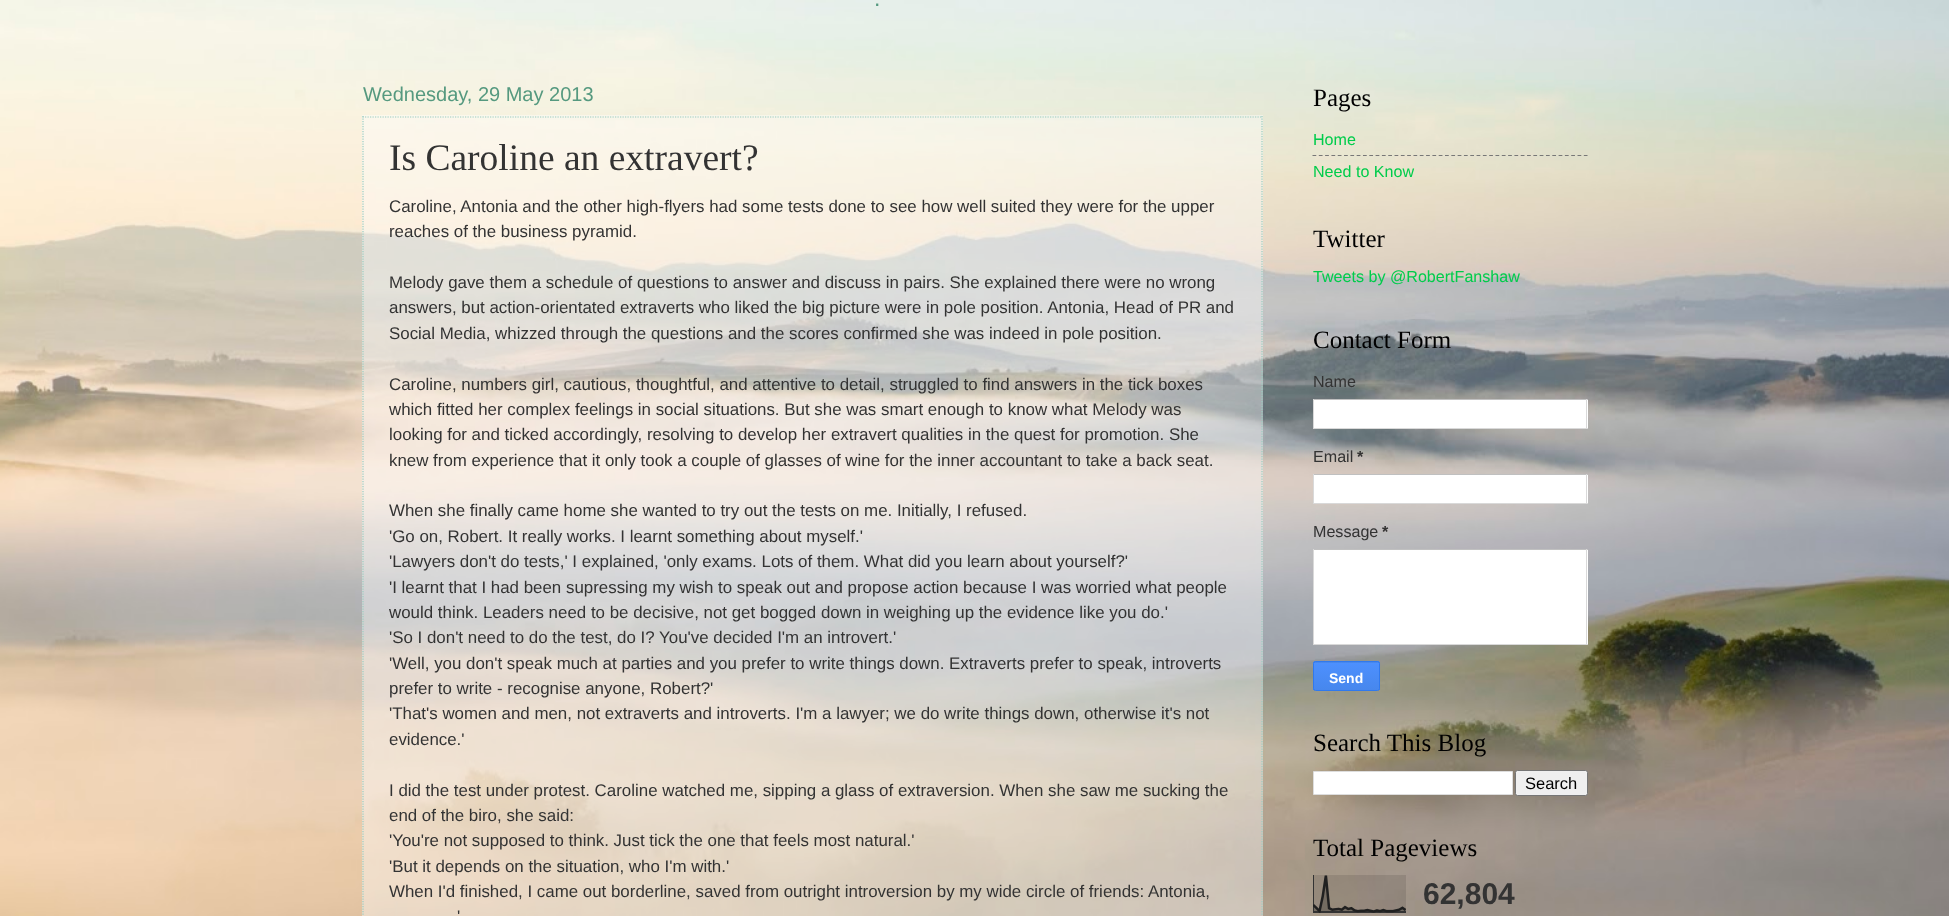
async function draw(canvas) {
	canvas.width = 1949;
	canvas.height = 916;
	const c = canvas.getContext('2d');
	c.miterLimit = 4;
	c.fontKerning = 'normal';
	async function loadImage(src) {
		const img = new Image();
		img.src = src;
		await img.decode();
		return img;
	}
	let gradient;

	c.fillStyle = '#fff';
	c.fillRect(0, 0, 1949, 916);
	c.drawImage(await loadImage('img1.png'), 0, 0, 1949, 916);
	c.font = '23px Liberation Sans';
	c.fillStyle = '#55997f';
	c.fillText('.', 874, 6);
	c.font = '20px Liberation Sans';
	c.fillText('Wednesday, 29 May 2013', 363, 101);
	c.fillStyle = '#ffffff66';
	c.fillRect(362, 115, 901, 801);
	c.beginPath();
	c.moveTo(362.5, 117);
	c.lineTo(1262.5, 117);
	c.strokeStyle = '#99ccc1';
	c.lineWidth = 1.2;
	c.setLineDash([1.25, 1.25]);
	c.stroke();
	c.beginPath();
	c.moveTo(1262, 116);
	c.lineTo(1262, 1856);
	c.stroke();
	c.beginPath();
	c.moveTo(363, 116);
	c.lineTo(363, 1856);
	c.stroke();
	c.font = '37.5px Liberation Serif';
	c.fillStyle = '#333';
	c.fillText('Is Caroline an extravert?', 389, 170);
	c.font = '16.9px Liberation Sans';
	for (const [text, x, y] of [
		['Caroline, Antonia and the other high-flyers had some tests done to see how well suited they were for the upper', 389, 212],
		['reaches of the business pyramid.', 389, 237],
		['Melody gave them a schedule of questions to answer and discuss in pairs. She explained there were no wrong', 389, 288],
		['answers, but action-orientated extraverts who liked the big picture were in pole position. Antonia, Head of PR and', 389, 313],
		['Social Media, whizzed through the questions and the scores confirmed she was indeed in pole position.', 389, 339],
		['Caroline, numbers girl, cautious, thoughtful, and attentive to detail, struggled to find answers in the tick boxes', 389, 390],
		['which fitted her complex feelings in social situations. But she was smart enough to know what Melody was', 389, 415],
		['looking for and ticked accordingly, resolving to develop her extravert qualities in the quest for promotion. She', 389, 440],
		['knew from experience that it only took a couple of glasses of wine for the inner accountant to take a back seat.', 389, 466],
		['When she finally came home she wanted to try out the tests on me. Initially, I refused.', 389, 516],
		['\'Go on, Robert. It really works. I learnt something about myself.\'', 389, 542],
		['\'Lawyers don\'t do tests,\' I explained, \'only exams. Lots of them. What did you learn about yourself?\'', 389, 567],
		['\'I learnt that I had been supressing my wish to speak out and propose action because I was worried what people', 389, 593],
		['would think. Leaders need to be decisive, not get bogged down in weighing up the evidence like you do.\'', 389, 618],
		['\'So I don\'t need to do the test, do I? You\'ve decided I\'m an introvert.\'', 389, 643],
		['\'Well, you don\'t speak much at parties and you prefer to write things down. Extraverts prefer to speak, introverts', 389, 669],
		['prefer to write - recognise anyone, Robert?\'', 389, 694],
		['\'That\'s women and men, not extraverts and introverts. I\'m a lawyer; we do write things down, otherwise it\'s not', 389, 719],
		['evidence.\'', 389, 745],
		['I did the test under protest. Caroline watched me, sipping a glass of extraversion. When she saw me sucking the', 389, 796],
		['end of the biro, she said:', 389, 821],
		['\'You\'re not supposed to think. Just tick the one that feels most natural.\'', 389, 846],
		['\'But it depends on the situation, who I\'m with.\'', 389, 872],
		['When I\'d finished, I came out borderline, saved from outright introversion by my wide circle of friends: Antonia,', 389, 897],
		['\'', 457, 922],
	]) {
		c.fillText(text, x, y);
	}
	c.font = '25px Liberation Serif';
	c.fillStyle = '#000';
	c.fillText('Pages', 1313, 106);
	c.font = '16.1px Liberation Sans';
	c.fillStyle = '#00cc4b';
	c.fillText('Home', 1313, 145);
	c.beginPath();
	c.moveTo(1312.5, 155.5);
	c.lineTo(1587.5, 155.5);
	c.strokeStyle = '#777';
	c.setLineDash([3.75, 2.56]);
	c.stroke();
	c.fillText('Need to Know', 1313, 177);
	c.font = '25px Liberation Serif';
	c.fillStyle = '#000';
	c.fillText('Twitter', 1313, 247);
	c.font = '16.1px Liberation Sans';
	c.fillStyle = '#00cc4b';
	c.fillText('Tweets by @RobertFanshaw', 1313, 282);
	c.font = '25px Liberation Serif';
	c.fillStyle = '#000';
	c.fillText('Contact Form', 1313, 348);
	c.font = '16.1px Liberation Sans';
	c.fillStyle = '#333';
	c.fillText('Name', 1313, 387);
	for (const [x, y, w, h, color] of [
		[1314, 400, 274, 28, '#fff'],
		[1313, 399, 275, 1, '#c0c0c0'],
		[1586, 399, 1, 30, '#d9d9d9'],
		[1313, 428, 275, 1, '#d9d9d9'],
		[1313, 399, 1, 30, '#d9d9d9'],
	]) {
		c.fillStyle = color;
		c.fillRect(x, y, w, h);
	}
	c.fillStyle = '#333';
	c.fillText('Email', 1313, 462);
	c.font = 'bold 16.1px Liberation Sans';
	c.fillText('*', 1357, 462);
	for (const [x, y, w, h, color] of [
		[1314, 475, 274, 28, '#fff'],
		[1313, 474, 275, 1, '#c0c0c0'],
		[1586, 474, 1, 30, '#d9d9d9'],
		[1313, 503, 275, 1, '#d9d9d9'],
		[1313, 474, 1, 30, '#d9d9d9'],
	]) {
		c.fillStyle = color;
		c.fillRect(x, y, w, h);
	}
	c.font = '16.1px Liberation Sans';
	c.fillStyle = '#333';
	c.fillText('Message', 1313, 537);
	c.font = 'bold 16.1px Liberation Sans';
	c.fillText('*', 1382, 537);
	for (const [x, y, w, h, color] of [
		[1314, 550, 274, 94, '#fff'],
		[1313, 549, 275, 1, '#c0c0c0'],
		[1586, 549, 1, 96, '#d9d9d9'],
		[1313, 644, 275, 1, '#d9d9d9'],
		[1313, 549, 1, 96, '#d9d9d9'],
	]) {
		c.fillStyle = color;
		c.fillRect(x, y, w, h);
	}
	c.save();
	c.beginPath();
	c.roundRect(1313, 661, 67, 30, 2.5);
	c.clip();
	gradient = c.createLinearGradient(1346, 635, 1346, 663);
	gradient.addColorStop(0, '#4d90fe');
	gradient.addColorStop(1, '#4787ed');
	c.fillStyle = gradient;
	c.fillRect(1313, 661, 67, 2);
	c.restore();
	gradient = c.createLinearGradient(1346, 663, 1346, 690);
	gradient.addColorStop(0, '#4d90fe');
	gradient.addColorStop(1, '#4787ed');
	c.fillStyle = gradient;
	c.fillRect(1313, 663, 67, 27);
	c.beginPath();
	c.roundRect(1313.5, 661.5, 66, 29, 2);
	c.strokeStyle = '#3079ed';
	c.lineWidth = 1;
	c.setLineDash([]);
	c.stroke();
	c.font = 'bold 14px Liberation Sans';
	c.fillStyle = '#fff';
	c.fillText('Send', 1329, 683);
	c.font = '25px Liberation Serif';
	c.fillStyle = '#000';
	c.fillText('Search This Blog', 1313, 751);
	c.fillStyle = '#fff';
	c.beginPath();
	c.rect(1313.5, 771.5, 199, 23);
	c.fill();
	c.strokeStyle = '#ddd';
	c.stroke();
	c.fillStyle = '#efefef';
	c.beginPath();
	c.roundRect(1515.5, 770.5, 72, 25, 2);
	c.fill();
	c.strokeStyle = '#767676';
	c.stroke();
	c.font = '16.5px Liberation Sans';
	c.fillStyle = '#000';
	c.fillText('Search', 1525, 789);
	c.font = '25px Liberation Serif';
	c.fillText('Total Pageviews', 1313, 856);
	c.drawImage(await loadImage('img2.png'), 1313, 875, 93, 38);
	c.font = 'bold 30px Liberation Sans';
	c.fillStyle = '#333';
	c.fillText('62,804', 1423, 904);
}

draw(document.querySelector('canvas'));
